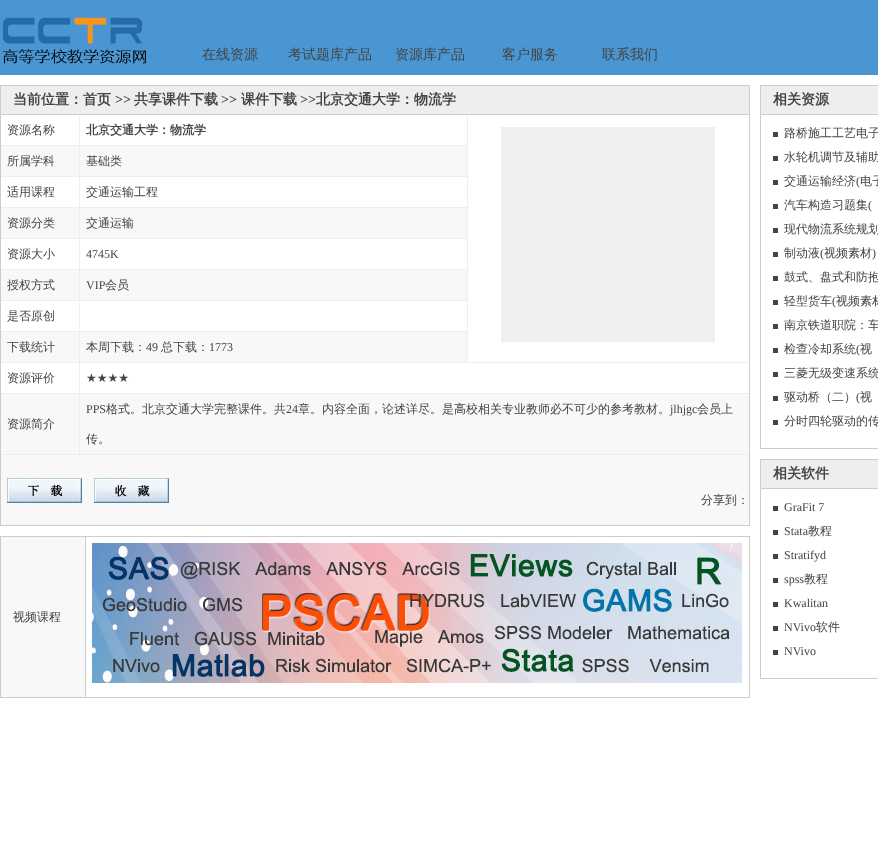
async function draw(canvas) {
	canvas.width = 878;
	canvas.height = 850;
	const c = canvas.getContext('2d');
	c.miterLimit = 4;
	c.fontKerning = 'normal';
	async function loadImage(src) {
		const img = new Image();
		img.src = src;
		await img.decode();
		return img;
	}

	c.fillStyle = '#fff';
	c.fillRect(0, 0, 878, 850);
	c.fillStyle = '#4a96d2';
	c.fillRect(0, 0, 878, 75);
	c.drawImage(await loadImage('img1.png'), 3, 17, 143, 47);
	c.font = '500 14px WenQuanYi Zen Hei';
	c.fillStyle = '#444';
	for (const [text, x, y] of [
		['在线资源', 202, 59],
		['考试题库产品', 288, 59],
		['资源库产品', 395, 59],
		['客户服务', 502, 59],
		['联系我们', 602, 59],
	]) {
		c.fillText(text, x, y);
	}
	c.fillStyle = '#eee';
	c.beginPath();
	c.rect(0.5, 85.5, 749, 29);
	c.fill();
	c.strokeStyle = '#ccc';
	c.stroke();
	c.font = 'bold 14px WenQuanYi Zen Hei';
	c.fillStyle = '#444';
	c.fillText('当前位置：首页', 13, 104);
	c.font = 'bold 14px Liberation Serif';
	c.fillText('>>', 115, 104);
	c.font = 'bold 14px WenQuanYi Zen Hei';
	c.fillText('共享课件下载', 134, 104);
	c.font = 'bold 14px Liberation Serif';
	c.fillText('>>', 221, 104);
	c.font = 'bold 14px WenQuanYi Zen Hei';
	c.fillText('课件下载', 241, 104);
	c.font = 'bold 14px Liberation Serif';
	c.fillText('>>', 300, 104);
	c.font = 'bold 14px WenQuanYi Zen Hei';
	c.fillText('北京交通大学：物流学', 316, 104);
	for (const [x, y, w, h, color] of [
		[749, 115, 1, 411, '#ccc'],
		[0, 525, 750, 1, '#ccc'],
		[0, 115, 1, 411, '#ccc'],
		[79, 115, 1, 31, '#eee'],
		[1, 145, 79, 1, '#eee'],
	]) {
		c.fillStyle = color;
		c.fillRect(x, y, w, h);
	}
	c.font = '500 12px WenQuanYi Zen Hei';
	c.fillStyle = '#444';
	c.fillText('资源名称', 7, 134);
	c.fillStyle = '#eee';
	c.fillRect(467, 115, 1, 248);
	c.fillRect(80, 145, 388, 1);
	c.font = 'bold 12px WenQuanYi Zen Hei';
	c.fillStyle = '#444';
	c.fillText('北京交通大学：物流学', 86, 134);
	for (const [x, y, w, h, color] of [
		[1, 146, 466, 30, '#f8f8f8'],
		[79, 146, 1, 62, '#eee'],
		[1, 176, 467, 1, '#eee'],
	]) {
		c.fillStyle = color;
		c.fillRect(x, y, w, h);
	}
	c.font = '500 12px WenQuanYi Zen Hei';
	c.fillStyle = '#444';
	c.fillText('所属学科', 7, 165);
	c.fillText('基础类', 86, 165);
	c.fillStyle = '#eee';
	c.fillRect(1, 207, 467, 1);
	c.fillStyle = '#444';
	c.fillText('适用课程', 7, 196);
	c.fillText('交通运输工程', 86, 196);
	for (const [x, y, w, h, color] of [
		[1, 208, 466, 30, '#f8f8f8'],
		[79, 208, 1, 62, '#eee'],
		[1, 238, 467, 1, '#eee'],
	]) {
		c.fillStyle = color;
		c.fillRect(x, y, w, h);
	}
	c.fillStyle = '#444';
	c.fillText('资源分类', 7, 227);
	c.fillText('交通运输', 86, 227);
	c.fillStyle = '#eee';
	c.fillRect(1, 269, 467, 1);
	c.fillStyle = '#444';
	c.fillText('资源大小', 7, 258);
	c.font = '12px Liberation Serif';
	c.fillText('4745K', 86, 258);
	for (const [x, y, w, h, color] of [
		[1, 270, 466, 30, '#f8f8f8'],
		[79, 270, 1, 62, '#eee'],
		[1, 300, 467, 1, '#eee'],
	]) {
		c.fillStyle = color;
		c.fillRect(x, y, w, h);
	}
	c.font = '500 12px WenQuanYi Zen Hei';
	c.fillStyle = '#444';
	c.fillText('授权方式', 7, 289);
	c.font = '12px Liberation Serif';
	c.fillText('VIP', 86, 289);
	c.font = '500 12px WenQuanYi Zen Hei';
	c.fillText('会员', 105, 289);
	c.fillStyle = '#eee';
	c.fillRect(1, 331, 467, 1);
	c.fillStyle = '#444';
	c.fillText('是否原创', 7, 320);
	for (const [x, y, w, h, color] of [
		[1, 332, 466, 30, '#f8f8f8'],
		[79, 332, 1, 62, '#eee'],
		[1, 362, 747, 1, '#eee'],
	]) {
		c.fillStyle = color;
		c.fillRect(x, y, w, h);
	}
	c.fillStyle = '#444';
	c.fillText('下载统计', 7, 351);
	c.fillText('本周下载：', 86, 351);
	c.font = '12px Liberation Serif';
	c.fillText('49', 146, 351);
	c.font = '500 12px WenQuanYi Zen Hei';
	c.fillText('总下载：', 161, 351);
	c.font = '12px Liberation Serif';
	c.fillText('1773', 209, 351);
	c.fillStyle = '#efefef';
	c.fillRect(501, 127, 214, 215);
	c.fillStyle = '#eee';
	c.fillRect(1, 393, 748, 1);
	c.font = '500 12px WenQuanYi Zen Hei';
	c.fillStyle = '#444';
	c.fillText('资源评价', 7, 382);
	c.font = '12px DejaVu Sans';
	c.fillText('★★★★', 86, 382);
	for (const [x, y, w, h, color] of [
		[1, 394, 748, 60, '#f8f8f8'],
		[79, 394, 1, 61, '#eee'],
		[1, 454, 748, 1, '#eee'],
	]) {
		c.fillStyle = color;
		c.fillRect(x, y, w, h);
	}
	c.font = '500 12px WenQuanYi Zen Hei';
	c.fillStyle = '#444';
	c.fillText('资源简介', 7, 428);
	c.font = '12px Liberation Serif';
	c.fillText('PPS', 86, 413);
	c.font = '500 12px WenQuanYi Zen Hei';
	c.fillText('格式。北京交通大学完整课件。共', 106, 413);
	c.font = '12px Liberation Serif';
	c.fillText('24', 286, 413);
	c.font = '500 12px WenQuanYi Zen Hei';
	c.fillText('章。内容全面，论述详尽。是高校相关专业教师必不可少的参考教材。', 298, 413);
	c.font = '12px Liberation Serif';
	c.fillText('jlhjgc', 670, 413);
	c.font = '500 12px WenQuanYi Zen Hei';
	c.fillText('会员上', 697, 413);
	c.fillText('传。', 86, 443);
	c.fillStyle = '#f8f8f8';
	c.fillRect(1, 455, 748, 70);
	c.drawImage(await loadImage('img2.png'), 7, 478, 75, 25);
	c.drawImage(await loadImage('img3.png'), 94, 478, 75, 25);
	c.fillStyle = '#444';
	c.fillText('分享到：', 701, 504);
	for (const [x, y, w, h, color] of [
		[0, 536, 750, 1, '#ccc'],
		[749, 536, 1, 162, '#ccc'],
		[0, 697, 750, 1, '#ccc'],
		[0, 536, 1, 162, '#ccc'],
		[1, 537, 84, 160, '#f8f8f8'],
	]) {
		c.fillStyle = color;
		c.fillRect(x, y, w, h);
	}
	c.fillStyle = '#444';
	c.fillText('视频课程', 13, 621);
	c.fillStyle = '#ccc';
	c.fillRect(85, 536, 1, 162);
	c.drawImage(await loadImage('img4.png'), 92, 543, 650, 140);
	c.fillStyle = '#eee';
	c.beginPath();
	c.rect(760.5, 85.5, 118, 29);
	c.fill();
	c.stroke();
	c.font = 'bold 14px WenQuanYi Zen Hei';
	c.fillStyle = '#444';
	c.fillText('相关资源', 773, 104);
	for (const [x, y, w, h, color] of [
		[760, 448, 118, 1, '#ccc'],
		[760, 115, 1, 334, '#ccc'],
		[773, 132, 5, 5, '#444'],
	]) {
		c.fillStyle = color;
		c.fillRect(x, y, w, h);
	}
	c.font = '500 12px WenQuanYi Zen Hei';
	c.fillText('路桥施工工艺电子', 784, 137);
	c.fillRect(773, 156, 5, 5);
	c.fillText('水轮机调节及辅助', 784, 161);
	c.fillRect(773, 180, 5, 5);
	c.fillText('交通运输经济', 784, 185);
	c.font = '12px Liberation Serif';
	c.fillText('(', 856, 185);
	c.font = '500 12px WenQuanYi Zen Hei';
	c.fillText('电子', 860, 185);
	c.fillRect(773, 204, 5, 5);
	c.fillText('汽车构造习题集', 784, 209);
	c.font = '12px Liberation Serif';
	c.fillText('(', 868, 209);
	c.fillRect(773, 228, 5, 5);
	c.font = '500 12px WenQuanYi Zen Hei';
	c.fillText('现代物流系统规划', 784, 233);
	c.fillRect(773, 252, 5, 5);
	c.fillText('制动液', 784, 257);
	c.font = '12px Liberation Serif';
	c.fillText('(', 820, 257);
	c.font = '500 12px WenQuanYi Zen Hei';
	c.fillText('视频素材', 824, 257);
	c.font = '12px Liberation Serif';
	c.fillText(')', 872, 257);
	c.fillRect(773, 276, 5, 5);
	c.font = '500 12px WenQuanYi Zen Hei';
	c.fillText('鼓式、盘式和防抱', 784, 281);
	c.fillRect(773, 300, 5, 5);
	c.fillText('轻型货车', 784, 305);
	c.font = '12px Liberation Serif';
	c.fillText('(', 832, 305);
	c.font = '500 12px WenQuanYi Zen Hei';
	c.fillText('视频素材', 836, 305);
	c.fillRect(773, 324, 5, 5);
	c.fillText('南京铁道职院：车', 784, 329);
	c.fillRect(773, 348, 5, 5);
	c.fillText('检查冷却系统', 784, 353);
	c.font = '12px Liberation Serif';
	c.fillText('(', 856, 353);
	c.font = '500 12px WenQuanYi Zen Hei';
	c.fillText('视', 860, 353);
	c.fillRect(773, 372, 5, 5);
	c.fillText('三菱无级变速系统', 784, 377);
	c.fillRect(773, 396, 5, 5);
	c.fillText('驱动桥（二）', 784, 401);
	c.font = '12px Liberation Serif';
	c.fillText('(', 856, 401);
	c.font = '500 12px WenQuanYi Zen Hei';
	c.fillText('视', 860, 401);
	c.fillRect(773, 420, 5, 5);
	c.fillText('分时四轮驱动的传', 784, 425);
	c.fillStyle = '#eee';
	c.beginPath();
	c.rect(760.5, 459.5, 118, 29);
	c.fill();
	c.stroke();
	c.font = 'bold 14px WenQuanYi Zen Hei';
	c.fillStyle = '#444';
	c.fillText('相关软件', 773, 478);
	for (const [x, y, w, h, color] of [
		[760, 678, 118, 1, '#ccc'],
		[760, 489, 1, 190, '#ccc'],
		[773, 506, 5, 5, '#444'],
	]) {
		c.fillStyle = color;
		c.fillRect(x, y, w, h);
	}
	c.font = '12px Liberation Serif';
	c.fillText('GraFit 7', 784, 511);
	c.fillRect(773, 530, 5, 5);
	c.fillText('Stata', 784, 535);
	c.font = '500 12px WenQuanYi Zen Hei';
	c.fillText('教程', 808, 535);
	c.fillRect(773, 554, 5, 5);
	c.font = '12px Liberation Serif';
	c.fillText('Stratifyd', 784, 559);
	c.fillRect(773, 578, 5, 5);
	c.fillText('spss', 784, 583);
	c.font = '500 12px WenQuanYi Zen Hei';
	c.fillText('教程', 804, 583);
	c.fillRect(773, 602, 5, 5);
	c.font = '12px Liberation Serif';
	c.fillText('Kwalitan', 784, 607);
	c.fillRect(773, 626, 5, 5);
	c.fillText('NVivo', 784, 631);
	c.font = '500 12px WenQuanYi Zen Hei';
	c.fillText('软件', 816, 631);
	c.fillRect(773, 650, 5, 5);
	c.font = '12px Liberation Serif';
	c.fillText('NVivo', 784, 655);
}

draw(document.querySelector('canvas'));
